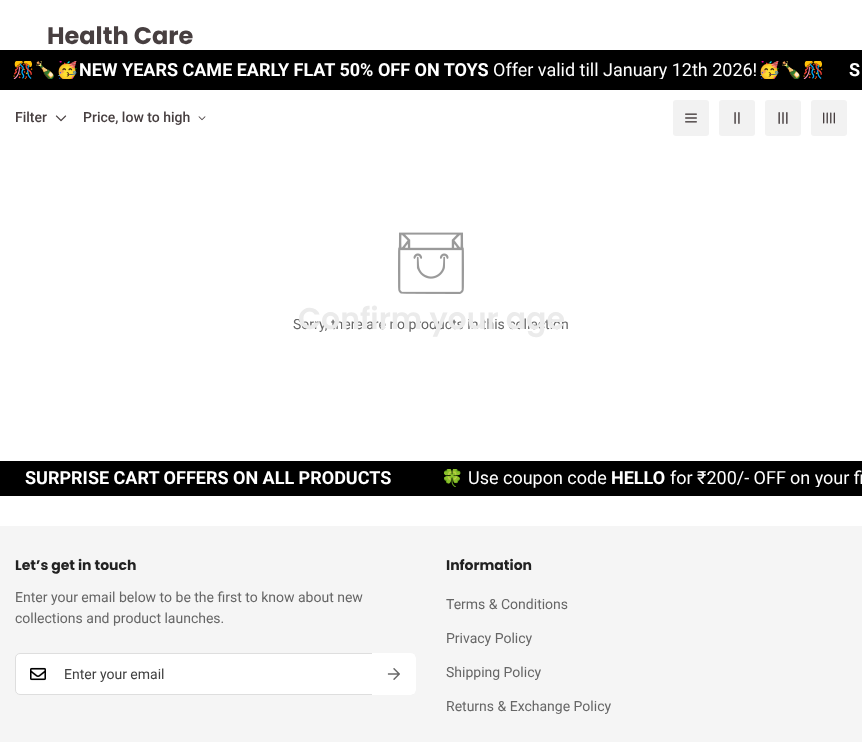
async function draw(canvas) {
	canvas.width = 862;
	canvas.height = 742;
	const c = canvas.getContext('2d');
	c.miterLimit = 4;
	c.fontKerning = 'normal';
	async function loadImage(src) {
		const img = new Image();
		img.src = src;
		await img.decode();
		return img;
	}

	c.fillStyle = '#fff';
	c.fillRect(0, 0, 862, 742);
	c.font = 'bold 24px Poppins';
	c.fillStyle = '#473f40';
	c.fillText('Health Care', 47, 44);
	c.fillStyle = '#000';
	c.fillRect(0, 50, 862, 40);
	c.save();
	c.beginPath();
	c.rect(0, 61, 862, 18);
	c.clip();
	c.font = '18px Noto Color Emoji';
	c.fillStyle = '#fff';
	c.fillText('🎊🍾🥳', 12, 76);
	c.restore();
	c.font = 'bold 18px Roboto';
	c.fillStyle = '#fff';
	c.fillText('NEW YEARS CAME EARLY FLAT 50% OFF ON TOYS', 79, 76);
	c.save();
	c.beginPath();
	c.rect(0, 61, 862, 18);
	c.clip();
	c.font = '18px Roboto';
	c.fillText('Offer valid till January 12th 2026!', 493, 76);
	c.font = '18px Noto Color Emoji';
	c.fillText('🥳🍾🎊', 758, 76);
	c.restore();
	c.fillText('S', 849, 76);
	c.font = '500 14px Roboto';
	c.fillStyle = '#473f40';
	c.fillText('Filter', 15, 122);
	c.drawImage(await loadImage('img1.png'), 55, 115, 12, 7);
	c.fillText('Price, low to high', 83, 122);
	c.drawImage(await loadImage('img2.png'), 198, 116, 8, 5);
	c.fillStyle = '#f2f2f2';
	c.beginPath();
	c.roundRect(673, 100, 36, 36, 3);
	c.fill();
	c.drawImage(await loadImage('img3.png'), 685, 113, 12, 10);
	c.beginPath();
	c.roundRect(719, 100, 36, 36, 3);
	c.fill();
	c.drawImage(await loadImage('img4.png'), 734, 112, 6, 12);
	c.beginPath();
	c.roundRect(765, 100, 36, 36, 3);
	c.fill();
	c.drawImage(await loadImage('img5.png'), 778, 112, 10, 12);
	c.beginPath();
	c.roundRect(811, 100, 36, 36, 3);
	c.fill();
	c.drawImage(await loadImage('img6.png'), 823, 112, 12, 12);
	c.drawImage(await loadImage('img7.png'), 398, 232, 66, 62);
	c.font = '14px Roboto';
	c.fillStyle = '#666';
	c.fillText('Sorry, there are no products in this collection', 293, 329);
	c.fillStyle = '#000';
	c.fillRect(0, 461, 862, 35);
	c.font = 'bold 18px Roboto';
	c.fillStyle = '#fff';
	c.fillText('SURPRISE CART OFFERS ON ALL PRODUCTS', 25, 484);
	c.save();
	c.beginPath();
	c.rect(0, 469, 862, 18);
	c.clip();
	c.font = '18px Noto Color Emoji';
	c.fillText('🍀', 441, 484);
	c.restore();
	c.font = '18px Roboto';
	c.fillText('Use coupon code', 468, 484);
	c.font = 'bold 18px Roboto';
	c.fillText('HELLO', 611, 484);
	c.font = '18px Roboto';
	c.fillText('for ₹200/- OFF', 670, 484);
	c.save();
	c.beginPath();
	c.rect(0, 469, 862, 18);
	c.clip();
	c.fillText('on your fi', 790, 484);
	c.restore();
	c.font = '600 30px Poppins';
	c.fillStyle = '#ebebeb';
	c.fillText('Confirm your age', 298, 329);
	c.fillStyle = '#f5f5f5';
	c.fillRect(0, 526, 862, 216);
	c.font = 'bold 14px Poppins';
	c.fillStyle = '#222';
	c.fillText('Let’s get in touch', 15, 570);
	c.font = '14px Roboto';
	c.fillStyle = '#666';
	c.fillText('Enter your email below to be the first to know about new', 15, 602);
	c.fillText('collections and product launches.', 15, 623);
	c.fillStyle = '#fff';
	c.beginPath();
	c.roundRect(15.5, 653.5, 400, 41, 4.5);
	c.fill();
	c.strokeStyle = '#dedede';
	c.stroke();
	c.drawImage(await loadImage('img8.png'), 30, 667, 16, 14);
	c.fillStyle = '#404040';
	c.fillText('Enter your email', 64, 679);
	c.fillStyle = '#fff';
	c.beginPath();
	c.roundRect(372, 653, 44, 42, [0, 5, 5, 0]);
	c.fill();
	c.drawImage(await loadImage('img9.png'), 387, 668, 13, 12);
	c.font = 'bold 14px Poppins';
	c.fillStyle = '#222';
	c.fillText('Information', 446, 570);
	c.font = '14px Roboto';
	c.fillStyle = '#666';
	for (const [text, x, y] of [
		['Terms & Conditions', 446, 609],
		['Privacy Policy', 446, 643],
		['Shipping Policy', 446, 677],
		['Returns & Exchange Policy', 446, 711],
	]) {
		c.fillText(text, x, y);
	}
}

draw(document.querySelector('canvas'));
